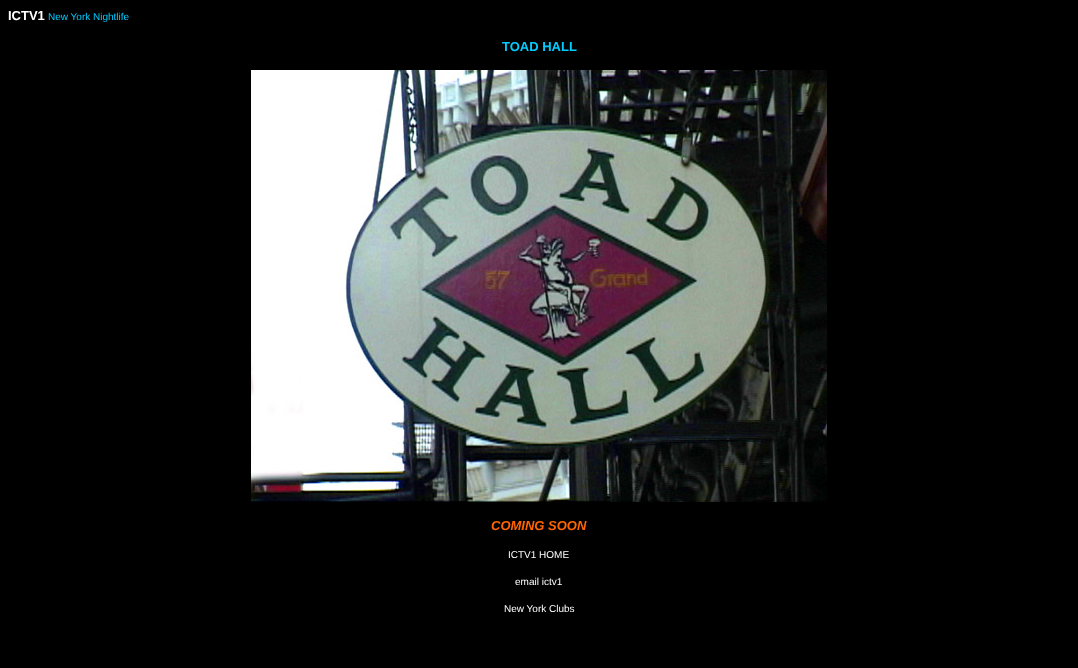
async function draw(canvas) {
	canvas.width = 1078;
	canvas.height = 668;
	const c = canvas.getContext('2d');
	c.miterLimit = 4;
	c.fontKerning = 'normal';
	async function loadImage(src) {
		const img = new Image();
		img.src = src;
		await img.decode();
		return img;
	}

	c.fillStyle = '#000';
	c.fillRect(0, 0, 1078, 668);
	c.font = 'bold 13px Liberation Sans';
	c.fillStyle = '#fff';
	c.fillText('ICTV1', 8, 20);
	c.font = '10px Liberation Sans';
	c.fillStyle = '#0cf';
	c.fillText('New York Nightlife', 48, 20);
	c.font = 'bold 13px Liberation Sans';
	c.fillText('TOAD HALL', 502, 51);
	c.drawImage(await loadImage('img1.png'), 251, 70, 576, 432);
	c.font = 'italic bold 13px Liberation Sans';
	c.fillStyle = '#f60';
	c.fillText('COMING SOON', 491, 530);
	c.font = '10px Liberation Sans';
	c.fillStyle = '#fff';
	for (const [text, x, y] of [
		['ICTV1 HOME', 508, 558],
		['email ictv1', 515, 585],
		['New York Clubs', 504, 612],
	]) {
		c.fillText(text, x, y);
	}
}

draw(document.querySelector('canvas'));
